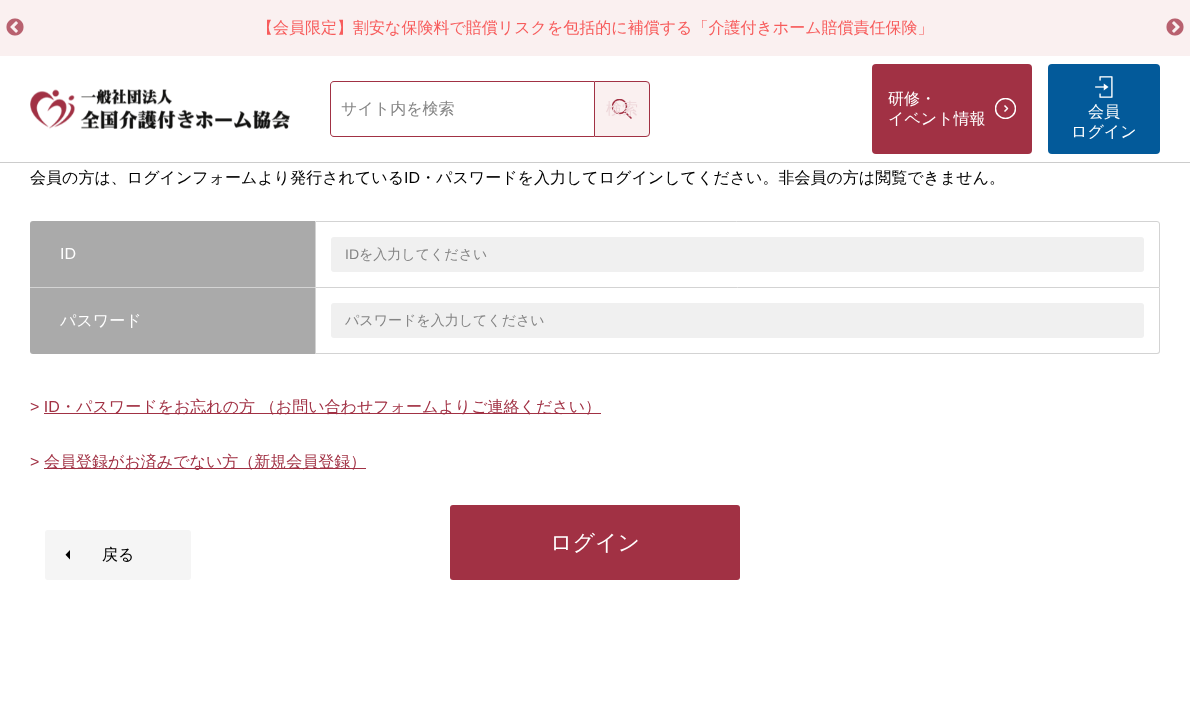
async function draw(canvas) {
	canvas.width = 1190;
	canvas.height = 706;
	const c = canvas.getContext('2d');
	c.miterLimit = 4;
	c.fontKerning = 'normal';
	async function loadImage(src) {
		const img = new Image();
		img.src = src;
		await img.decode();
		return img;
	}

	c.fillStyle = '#fff';
	c.fillRect(0, 0, 1190, 706);
	c.fillStyle = '#ccc';
	c.fillRect(0, 162, 1190, 1);
	c.fillStyle = '#faf0f0';
	c.fillRect(0, 0, 1190, 56);
	c.drawImage(await loadImage('img1.png'), 6, 18, 18, 18);
	c.font = '500 16px WenQuanYi Zen Hei';
	c.fillStyle = '#f75c5c';
	c.fillText('【会員限定】割安な保険料で賠償リスクを包括的に補償する「介護付きホーム賠償責任保険」', 257, 33);
	c.drawImage(await loadImage('img2.png'), 1166, 18, 18, 18);
	c.drawImage(await loadImage('img3.png'), 30, 89, 260, 40);
	c.fillStyle = '#a13144';
	c.beginPath();
	c.moveTo(334, 81);
	c.lineTo(594, 81);
	c.lineTo(594, 137);
	c.lineTo(334, 137);
	c.bezierCurveTo(332, 137, 330, 135, 330, 133);
	c.lineTo(330, 85);
	c.bezierCurveTo(330, 83, 332, 81, 334, 81);
	c.closePath();
	c.moveTo(334, 82);
	c.lineTo(594, 82);
	c.lineTo(594, 136);
	c.lineTo(334, 136);
	c.bezierCurveTo(332, 136, 331, 135, 331, 133);
	c.lineTo(331, 85);
	c.bezierCurveTo(331, 83, 332, 82, 334, 82);
	c.closePath();
	c.fill('evenodd');
	c.fillStyle = '#848484';
	c.fillText('サイト内を検索', 341, 114);
	c.fillStyle = '#faf0f0';
	c.beginPath();
	c.roundRect(594, 81, 56, 56, [0, 4, 4, 0]);
	c.fill();
	c.save();
	c.beginPath();
	c.rect(612, 99, 20, 20);
	c.clip();
	c.beginPath();
	c.arc(619.5, 106.5, 7, 0, 2 * Math.PI);
	c.strokeStyle = '#a13144';
	c.lineWidth = 1.5;
	c.stroke();
	c.restore();
	c.beginPath();
	c.moveTo(624.5, 111.5);
	c.lineTo(631.5, 118.5);
	c.strokeStyle = '#a13144';
	c.lineWidth = 1.5;
	c.stroke();
	c.beginPath();
	c.roundRect(594.5, 81.5, 55, 55, [0, 3.5, 3.5, 0]);
	c.lineWidth = 1;
	c.stroke();
	c.fillStyle = '#eed7da';
	c.fillText('検索', 606, 114);
	c.fillStyle = '#a13144';
	c.beginPath();
	c.roundRect(872, 64, 160, 90, 4);
	c.fill();
	c.save();
	c.beginPath();
	c.rect(995, 98, 21, 21);
	c.clip();
	c.beginPath();
	c.arc(1005.5, 108.5, 10, 0, 2 * Math.PI);
	c.strokeStyle = '#fff';
	c.lineWidth = 1.5;
	c.stroke();
	c.restore();
	c.beginPath();
	c.moveTo(1004.5, 111.5);
	c.lineTo(1007.5, 108.5);
	c.lineTo(1004.5, 105.5);
	c.strokeStyle = '#fff';
	c.lineWidth = 1.5;
	c.lineJoin = 'round';
	c.stroke();
	c.fillStyle = '#fff';
	c.fillText('研修・', 888, 104);
	c.fillText('イベント情報', 888, 124);
	c.fillStyle = '#035a9a';
	c.beginPath();
	c.roundRect(1048, 64, 112, 90, 4);
	c.fill();
	c.drawImage(await loadImage('img4.png'), 1095, 76, 18, 22);
	c.fillStyle = '#fff';
	c.fillText('会員', 1088, 117);
	c.fillText('ログイン', 1071, 137);
	c.fillStyle = '#000';
	c.fillText('会員の方は、ログインフォームより発行されている', 30, 183);
	c.font = '16px Liberation Sans';
	c.fillText('ID', 404, 183);
	c.font = '500 16px WenQuanYi Zen Hei';
	c.fillText('・パスワードを入力してログインしてください。非会員の方は閲覧できません。', 420, 183);
	c.fillStyle = '#aaa';
	c.beginPath();
	c.roundRect(30, 221, 285, 67, [3, 0, 0, 0]);
	c.fill();
	c.fillStyle = '#d3d3d3';
	c.fillRect(30, 287, 285, 1);
	c.font = '16px Liberation Sans';
	c.fillStyle = '#fff';
	c.fillText('ID', 60, 259);
	c.beginPath();
	c.roundRect(315.5, 221.5, 844, 66, [0, 2.5, 0, 0]);
	c.strokeStyle = '#d3d3d3';
	c.lineWidth = 1;
	c.lineJoin = 'miter';
	c.stroke();
	c.fillStyle = '#f0f0f0';
	c.beginPath();
	c.roundRect(331, 237, 813, 35, 3);
	c.fill();
	c.font = '14px Liberation Sans';
	c.fillStyle = '#848484';
	c.fillText('ID', 345, 259);
	c.font = '500 14px WenQuanYi Zen Hei';
	c.fillText('を入力してください', 359, 259);
	c.fillStyle = '#aaa';
	c.beginPath();
	c.roundRect(30, 288, 285, 66, [0, 0, 0, 3]);
	c.fill();
	c.font = '500 16px WenQuanYi Zen Hei';
	c.fillStyle = '#fff';
	c.fillText('パスワード', 60, 326);
	c.fillStyle = '#d3d3d3';
	c.beginPath();
	c.moveTo(315, 288);
	c.lineTo(1160, 288);
	c.lineTo(1160, 351);
	c.bezierCurveTo(1160, 353, 1159, 354, 1157, 354);
	c.lineTo(315, 354);
	c.closePath();
	c.moveTo(316, 288);
	c.lineTo(1159, 288);
	c.lineTo(1159, 351);
	c.bezierCurveTo(1159, 352, 1158, 353, 1157, 353);
	c.lineTo(316, 353);
	c.closePath();
	c.fill('evenodd');
	c.fillStyle = '#f0f0f0';
	c.beginPath();
	c.roundRect(331, 303, 813, 35, 3);
	c.fill();
	c.font = '500 14px WenQuanYi Zen Hei';
	c.fillStyle = '#848484';
	c.fillText('パスワードを入力してください', 345, 325);
	c.font = '16px Liberation Sans';
	c.fillStyle = '#a13144';
	c.fillText('> ID', 30, 412);
	c.fillRect(44, 413, 557, 1);
	c.font = '500 16px WenQuanYi Zen Hei';
	c.fillText('・パスワードをお忘れの方 （お問い合わせフォームよりご連絡ください）', 60, 412);
	c.font = '16px Liberation Sans';
	c.fillText('>', 30, 467);
	c.fillRect(44, 468, 322, 1);
	c.font = '500 16px WenQuanYi Zen Hei';
	c.fillText('会員登録がお済みでない方（新規会員登録）', 44, 467);
	c.fillStyle = '#f5f5f5';
	c.beginPath();
	c.roundRect(45, 530, 146, 50, 3);
	c.fill();
	c.drawImage(await loadImage('img5.png'), 65, 550, 5, 10);
	c.fillStyle = '#000';
	c.fillText('戻る', 102, 560);
	c.fillStyle = '#a13144';
	c.beginPath();
	c.roundRect(450, 505, 290, 75, 3);
	c.fill();
	c.font = '500 22px WenQuanYi Zen Hei';
	c.fillStyle = '#fff';
	c.fillText('ログイン', 550, 550);
}

draw(document.querySelector('canvas'));
